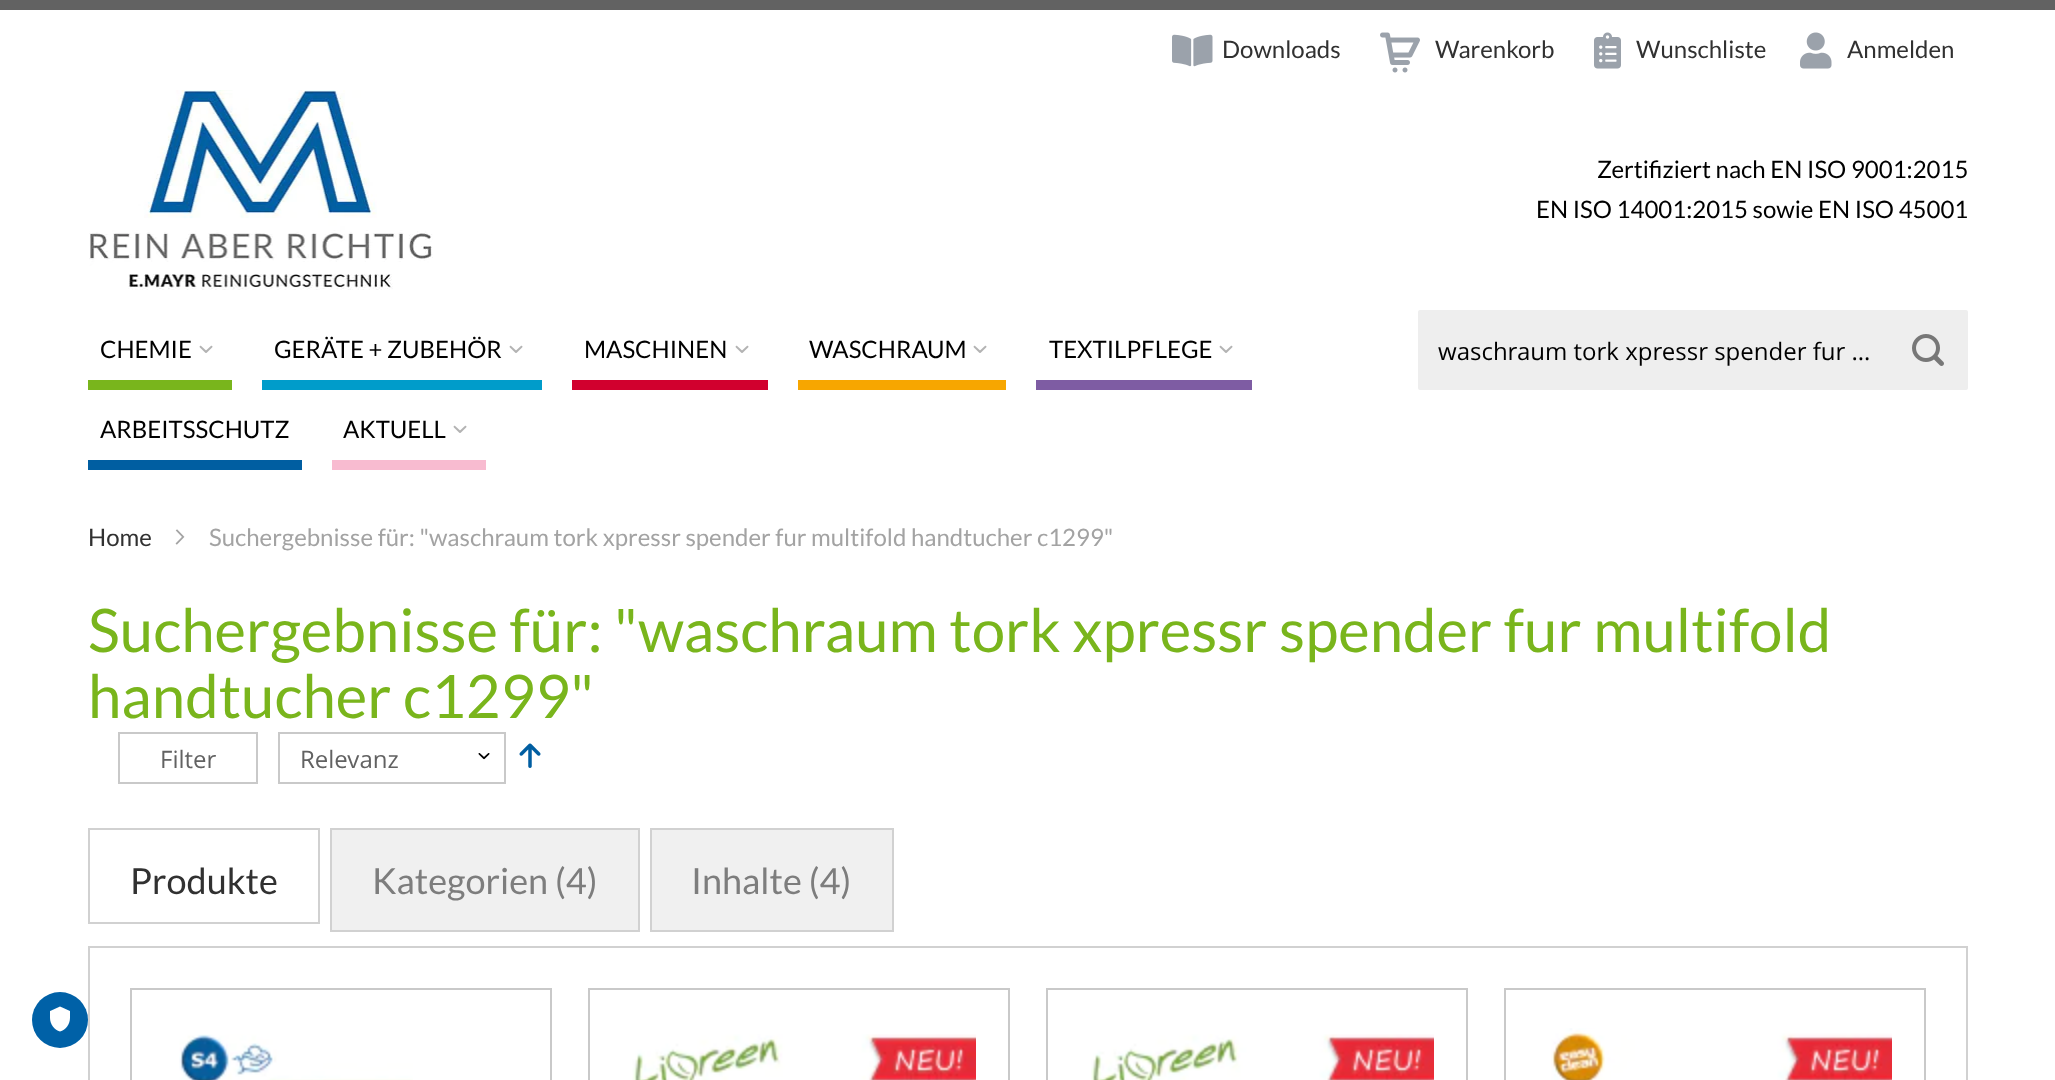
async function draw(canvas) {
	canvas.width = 2055;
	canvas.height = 1080;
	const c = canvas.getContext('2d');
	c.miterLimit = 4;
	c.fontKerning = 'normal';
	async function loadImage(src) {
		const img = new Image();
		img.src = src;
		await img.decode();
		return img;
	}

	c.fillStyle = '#fff';
	c.fillRect(0, 0, 2055, 1080);
	c.fillStyle = '#626262';
	c.fillRect(0, 0, 2055, 10);
	c.drawImage(await loadImage('img1.png'), 1172, 34, 41, 33);
	c.font = '24px Lato';
	c.fillStyle = '#313131';
	c.fillText('Downloads', 1222, 58);
	c.drawImage(await loadImage('img2.png'), 1380, 32, 40, 41);
	c.fillText('Warenkorb', 1435, 58);
	c.drawImage(await loadImage('img3.png'), 1594, 32, 27, 37);
	c.fillText('Wunschliste', 1636, 58);
	c.drawImage(await loadImage('img4.png'), 1800, 32, 32, 37);
	c.fillText('Anmelden', 1847, 58);
	c.drawImage(await loadImage('img5.png'), 89, 90, 344, 200);
	c.fillStyle = '#000';
	for (const [text, x, y] of [
		['Zertifiziert nach EN ISO 9001:2015', 1597, 178],
		['EN ISO 14001:2015 sowie EN ISO 45001', 1536, 218],
		['CHEMIE', 100, 358],
	]) {
		c.fillText(text, x, y);
	}
	c.drawImage(await loadImage('img6.png'), 199, 345, 14, 8);
	c.fillStyle = '#79b51c';
	c.fillRect(88, 380, 144, 10);
	c.fillStyle = '#000';
	c.fillText('GERÄTE + ZUBEHÖR', 274, 358);
	c.drawImage(await loadImage('img6.png'), 509, 345, 14, 8);
	c.fillStyle = '#009cca';
	c.fillRect(262, 380, 280, 10);
	c.fillStyle = '#000';
	c.fillText('MASCHINEN', 584, 358);
	c.drawImage(await loadImage('img6.png'), 735, 345, 14, 8);
	c.fillStyle = '#d1002e';
	c.fillRect(572, 380, 196, 10);
	c.fillStyle = '#000';
	c.fillText('WASCHRAUM', 809, 358);
	c.drawImage(await loadImage('img6.png'), 973, 345, 14, 8);
	c.fillStyle = '#f7a600';
	c.fillRect(798, 380, 208, 10);
	c.fillStyle = '#000';
	c.fillText('TEXTILPFLEGE', 1049, 358);
	c.drawImage(await loadImage('img6.png'), 1219, 345, 14, 8);
	c.fillStyle = '#7e5ca3';
	c.fillRect(1036, 380, 216, 10);
	c.fillStyle = '#000';
	c.fillText('ARBEITSSCHUTZ', 100, 438);
	c.fillStyle = '#005ea1';
	c.fillRect(88, 460, 214, 10);
	c.fillStyle = '#000';
	c.fillText('AKTUELL', 343, 438);
	c.drawImage(await loadImage('img6.png'), 453, 425, 14, 8);
	c.fillStyle = '#f8bbd0';
	c.fillRect(332, 460, 154, 10);
	c.fillStyle = '#eee';
	c.beginPath();
	c.roundRect(1419, 311, 548, 78, 1);
	c.fill();
	c.strokeStyle = '#eee';
	c.lineWidth = 2;
	c.stroke();
	c.font = '24px Open Sans';
	c.fillStyle = '#000';
	c.fillText('waschraum tork xpressr spender fur …', 1438, 360);
	c.drawImage(await loadImage('img7.png'), 1912, 334, 32, 32);
	c.font = '24px Lato';
	c.fillStyle = '#313131';
	c.fillText('Home', 88, 546);
	c.drawImage(await loadImage('img8.png'), 175, 529, 10, 16);
	c.fillStyle = '#a3a3a3';
	c.fillText('Suchergebnisse für: "waschraum tork xpressr spender fur multifold handtucher c1299"', 209, 546);
	c.font = '60px Lato';
	c.fillStyle = '#79b51c';
	c.fillText('Suchergebnisse für: "waschraum tork xpressr spender fur multifold', 88, 652);
	c.fillText('handtucher c1299"', 88, 718);
	c.strokeStyle = '#c9c9c9';
	c.strokeRect(119, 733, 138, 50);
	c.font = '24px Open Sans';
	c.fillStyle = '#626262';
	c.fillText('Filter', 160, 768);
	c.strokeRect(279, 733, 226, 50);
	c.fillText('Relevanz', 300, 768);
	c.drawImage(await loadImage('img9.png'), 478, 753, 12, 7);
	c.drawImage(await loadImage('img10.png'), 519, 743, 22, 25);
	c.strokeStyle = '#d1d1d1';
	c.strokeRect(89, 829, 230, 94);
	c.font = '36px Lato';
	c.fillStyle = '#313131';
	c.fillText('Produkte', 130, 894);
	c.fillStyle = '#f0f0f0';
	c.beginPath();
	c.rect(331, 829, 308, 102);
	c.fill();
	c.stroke();
	c.fillStyle = '#7d7d7d';
	c.fillText('Kategorien (4)', 372, 894);
	c.fillStyle = '#f0f0f0';
	c.beginPath();
	c.rect(651, 829, 242, 102);
	c.fill();
	c.stroke();
	c.fillStyle = '#7d7d7d';
	c.fillText('Inhalte (4)', 691, 894);
	c.strokeRect(89, 947, 1878, 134);
	c.strokeStyle = '#c9c9c9';
	c.strokeRect(131, 989, 420, 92);
	c.drawImage(await loadImage('img11.png'), 179, 1034, 234, 46);
	c.strokeRect(589, 989, 420, 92);
	c.drawImage(await loadImage('img12.png'), 632, 1034, 344, 46);
	c.strokeRect(1047, 989, 420, 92);
	c.drawImage(await loadImage('img13.png'), 1091, 1034, 343, 46);
	c.strokeRect(1505, 989, 420, 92);
	c.drawImage(await loadImage('img14.png'), 1551, 1028, 341, 52);
	c.fillStyle = '#0061a7';
	c.beginPath();
	c.arc(60, 1020, 28, 0, 2 * Math.PI);
	c.fill();
	c.drawImage(await loadImage('img15.png'), 50, 1006, 20, 26);
}

draw(document.querySelector('canvas'));
